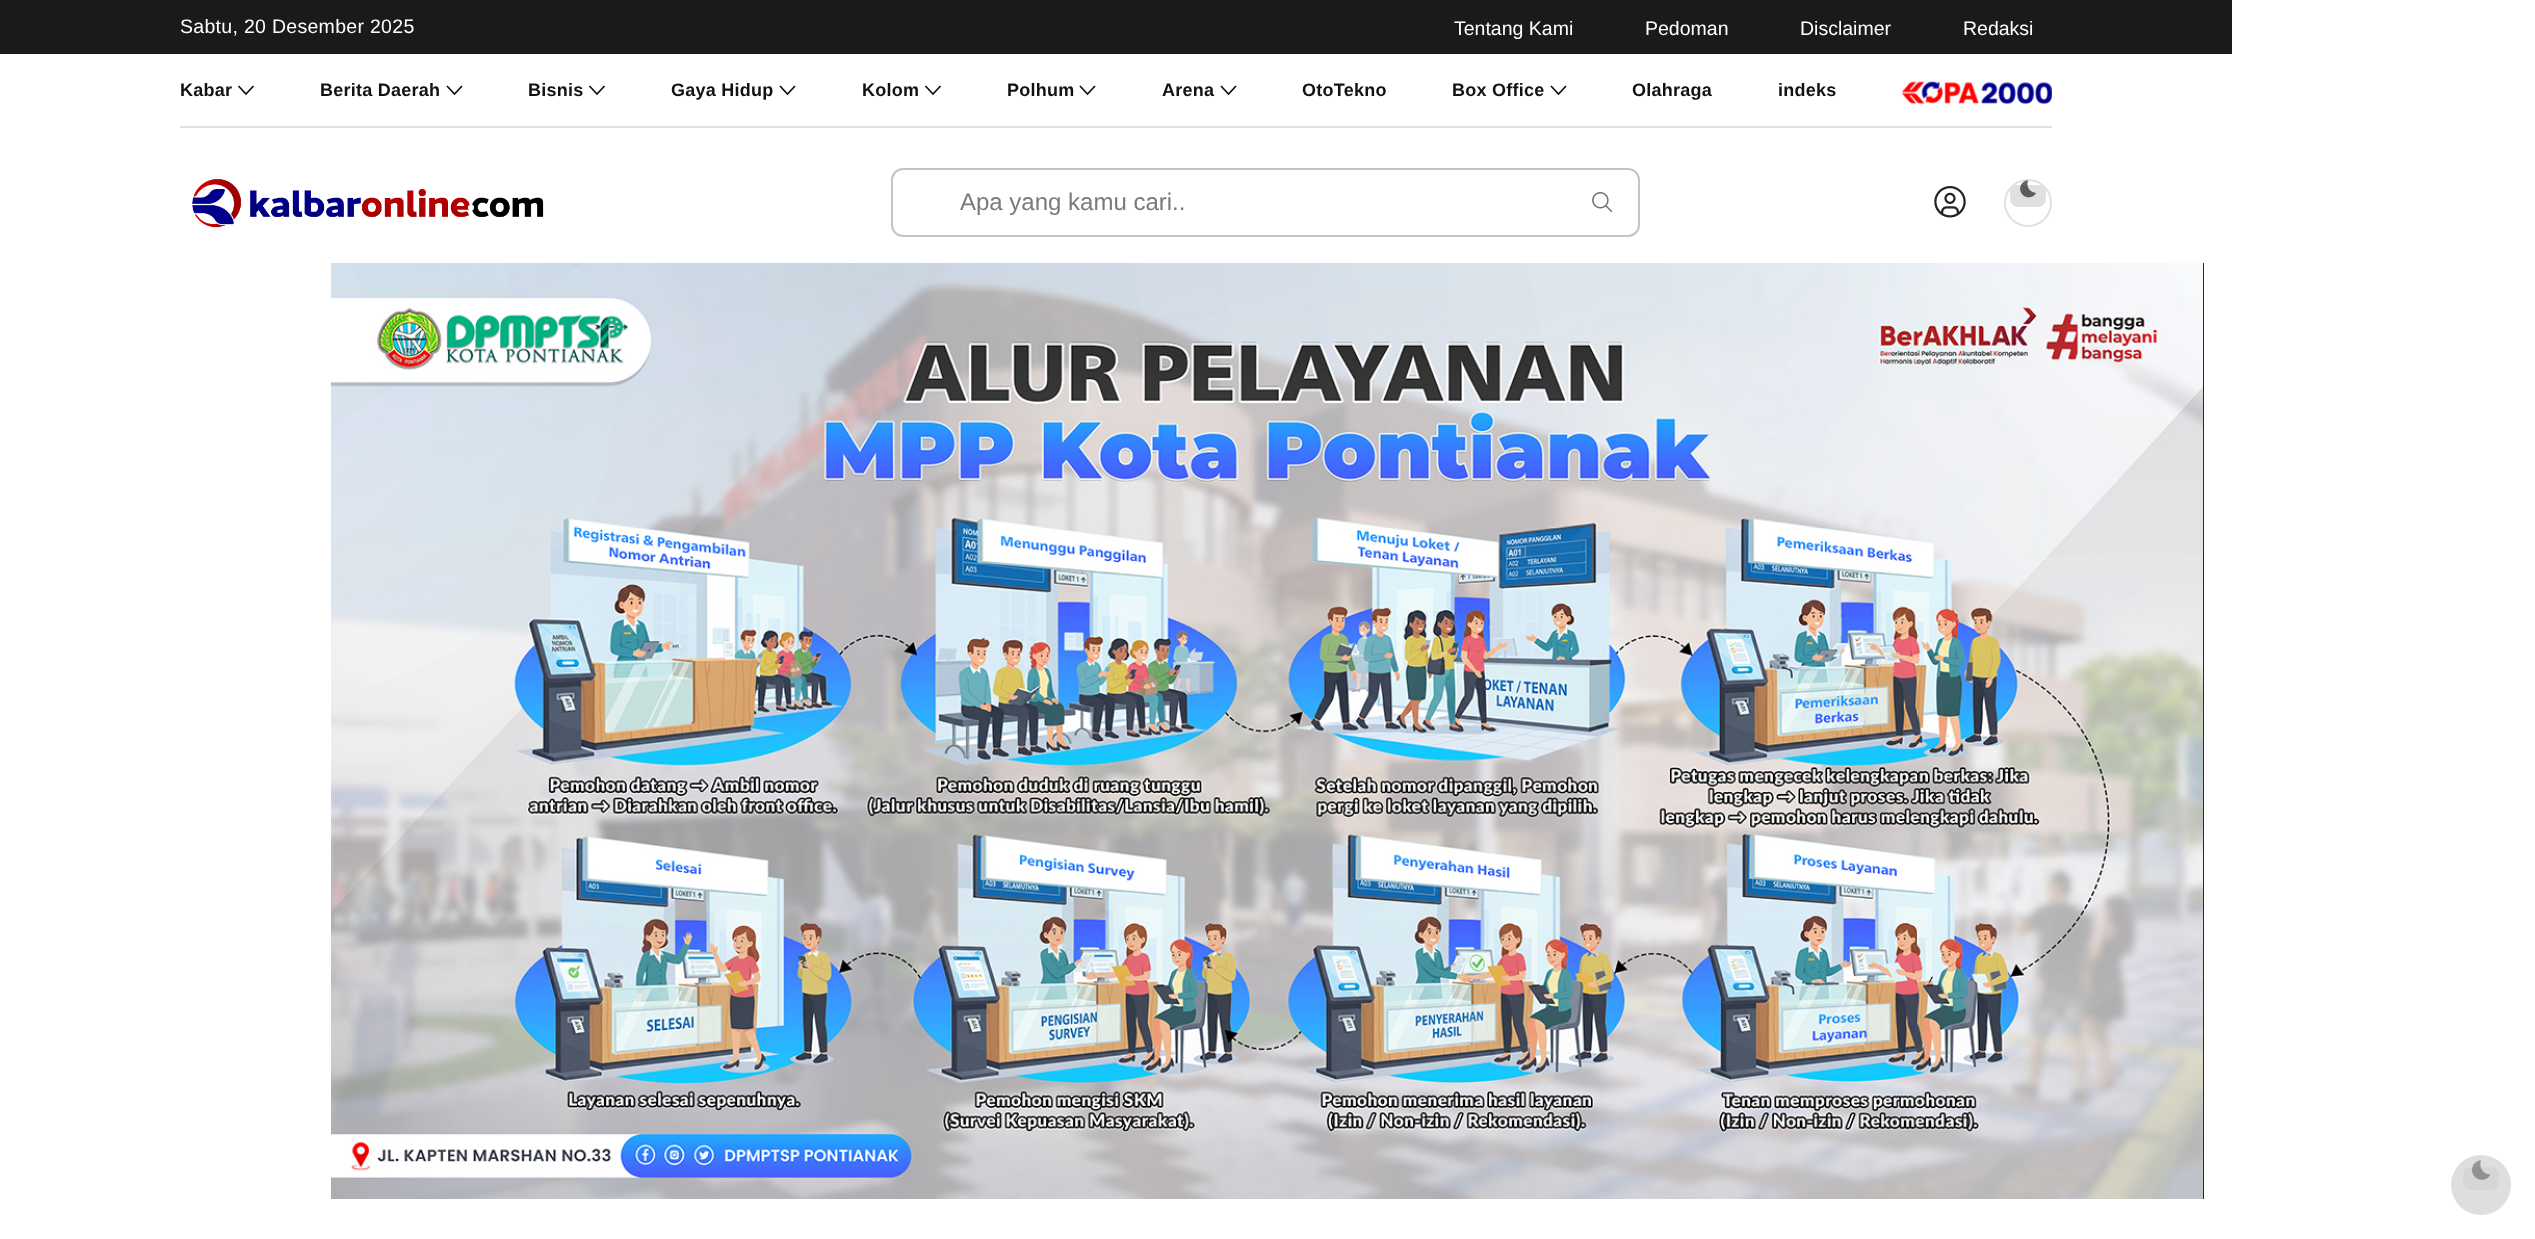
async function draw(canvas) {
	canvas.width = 2535;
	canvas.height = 1239;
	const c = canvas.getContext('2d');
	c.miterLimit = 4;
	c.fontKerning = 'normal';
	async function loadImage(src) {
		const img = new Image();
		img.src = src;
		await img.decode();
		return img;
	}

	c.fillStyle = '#fff';
	c.fillRect(0, 0, 2535, 1239);
	c.fillStyle = '#1a1a1a';
	c.fillRect(0, 0, 2232, 54);
	c.letterSpacing = '0.3px';
	c.font = '19.5px Liberation Sans';
	c.fillStyle = '#fff';
	c.fillText('Sabtu, 20 Desember 2025', 180, 33);
	c.letterSpacing = '0px';
	for (const [text, x, y] of [
		['Tentang Kami', 1454, 35],
		['Pedoman', 1645, 35],
		['Disclaimer', 1800, 35],
		['Redaksi', 1963, 35],
	]) {
		c.fillText(text, x, y);
	}
	c.fillStyle = '#e0e0e0';
	c.fillRect(180, 126, 1872, 2);
	c.letterSpacing = '0.25px';
	c.font = 'bold 18px Liberation Sans';
	c.fillStyle = '#121212';
	c.fillText('Kabar', 180, 96);
	c.beginPath();
	c.moveTo(238.5, 86);
	c.lineTo(246, 94);
	c.lineTo(253.5, 86);
	c.strokeStyle = '#121212';
	c.lineWidth = 1.7;
	c.stroke();
	c.fillText('Berita Daerah', 320, 96);
	c.beginPath();
	c.moveTo(447, 86);
	c.lineTo(454.5, 94);
	c.lineTo(462, 86);
	c.stroke();
	c.fillText('Bisnis', 528, 96);
	c.beginPath();
	c.moveTo(589.5, 86);
	c.lineTo(597, 94);
	c.lineTo(604.5, 86);
	c.stroke();
	c.fillText('Gaya Hidup', 671, 96);
	c.beginPath();
	c.moveTo(780, 86);
	c.lineTo(787.5, 94);
	c.lineTo(795, 86);
	c.stroke();
	c.fillText('Kolom', 862, 96);
	c.beginPath();
	c.moveTo(925.5, 86);
	c.lineTo(933, 94);
	c.lineTo(940.5, 86);
	c.stroke();
	c.fillText('Polhum', 1007, 96);
	c.beginPath();
	c.moveTo(1080, 86);
	c.lineTo(1087.5, 94);
	c.lineTo(1095, 86);
	c.stroke();
	c.fillText('Arena', 1162, 96);
	c.beginPath();
	c.moveTo(1221, 86);
	c.lineTo(1228.5, 94);
	c.lineTo(1236, 86);
	c.stroke();
	c.fillText('OtoTekno', 1302, 96);
	c.fillText('Box Office', 1452, 96);
	c.beginPath();
	c.moveTo(1551, 86);
	c.lineTo(1558.5, 94);
	c.lineTo(1566, 86);
	c.stroke();
	c.fillText('Olahraga', 1632, 96);
	c.fillText('indeks', 1778, 96);
	c.drawImage(await loadImage('img1.png'), 1901, 81, 151, 23);
	c.drawImage(await loadImage('img2.png'), 192, 179, 352, 49);
	c.beginPath();
	c.roundRect(892, 169, 747, 67, 11);
	c.strokeStyle = '#c4c4c4';
	c.lineWidth = 2;
	c.stroke();
	c.letterSpacing = '0px';
	c.font = '24px Liberation Sans';
	c.fillStyle = '#7a7a7a';
	c.fillText('Apa yang kamu cari..', 960, 210);
	c.drawImage(await loadImage('img3.png'), 1592, 192, 21, 21);
	c.drawImage(await loadImage('img4.png'), 1934, 186, 32, 32);
	c.beginPath();
	c.arc(2028, 203, 23, 0, 2 * Math.PI);
	c.strokeStyle = '#e0e0e0';
	c.stroke();
	c.fillStyle = '#d3d3d3b3';
	c.beginPath();
	c.roundRect(2010, 185, 36, 22, 8);
	c.fill();
	c.drawImage(await loadImage('img5.png'), 2020, 180, 16, 18);
	c.fillStyle = '#292929';
	c.fillRect(2203, 263, 1, 936);
	c.drawImage(await loadImage('img6.png'), 331, 263, 1872, 936);
	c.fillStyle = '#dedede';
	c.beginPath();
	c.arc(2481, 1185, 30, 0, 2 * Math.PI);
	c.fill();
	c.fillStyle = '#d3d3d3b3';
	c.beginPath();
	c.roundRect(2463, 1167, 36, 23, 8);
	c.fill();
	c.drawImage(await loadImage('img7.png'), 2472, 1160, 18, 20);
}

draw(document.querySelector('canvas'));
